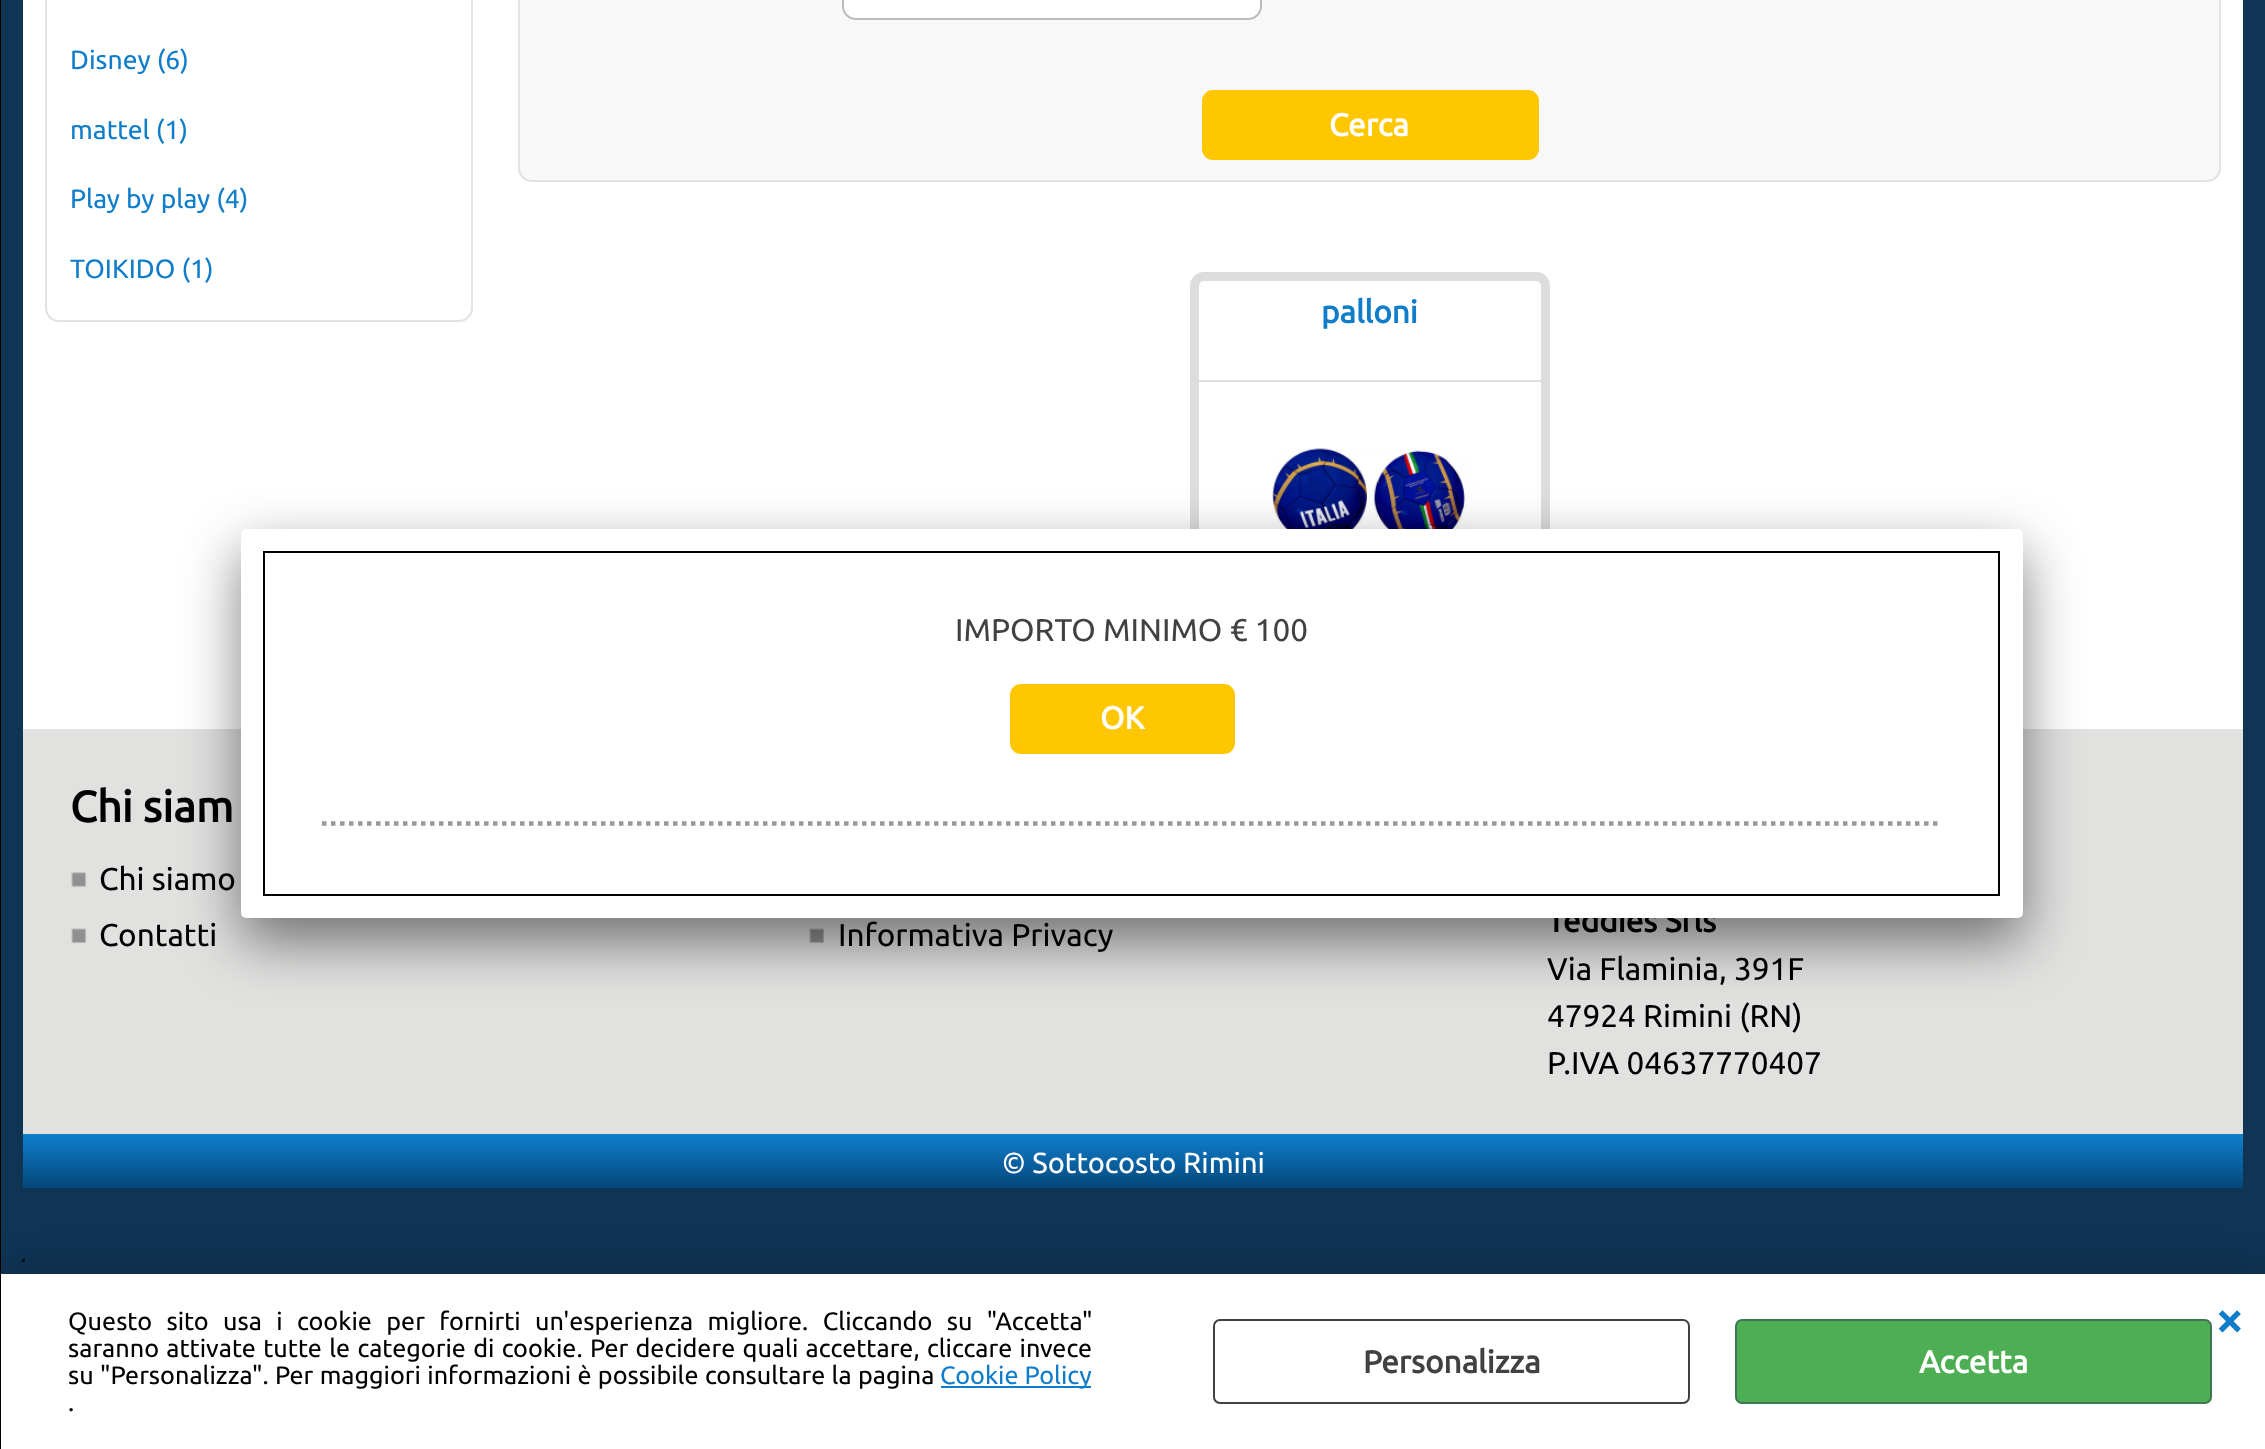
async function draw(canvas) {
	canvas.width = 2265;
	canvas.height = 1449;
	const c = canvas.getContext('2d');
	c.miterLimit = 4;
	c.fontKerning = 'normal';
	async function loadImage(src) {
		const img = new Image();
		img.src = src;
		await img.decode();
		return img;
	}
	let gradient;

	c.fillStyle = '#103454';
	c.fillRect(0, 0, 2265, 1449);
	c.fillStyle = '#051019';
	c.fillRect(22, 1259, 3, 3);
	c.fillStyle = '#00000033';
	c.filter = 'blur(20px)';
	c.beginPath();
	c.rect(0, 1274, 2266, 175);
	c.fill();
	c.filter = 'none';
	c.fillStyle = '#000';
	c.fillRect(0, 0, 1, 1449);
	c.fillStyle = '#fff';
	c.fillRect(23, 0, 2220, 729);
	c.beginPath();
	c.roundRect(46, -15, 426, 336, 13);
	c.strokeStyle = '#e2e2e2';
	c.lineWidth = 2;
	c.stroke();
	c.font = '26.5px Ubuntu';
	c.fillStyle = '#0f7dca';
	for (const [text, x, y] of [
		['Disney (6)', 70, 69],
		['mattel (1)', 70, 139],
		['Play by play (4)', 70, 208],
		['TOIKIDO (1)', 70, 278],
	]) {
		c.fillText(text, x, y);
	}
	c.fillStyle = '#f8f8f8';
	c.beginPath();
	c.roundRect(519, -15, 1701, 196, 13);
	c.fill();
	c.stroke();
	c.fillStyle = '#fff';
	c.beginPath();
	c.roundRect(843, -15, 418, 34, 13);
	c.fill();
	c.strokeStyle = '#bbb';
	c.stroke();
	c.fillStyle = '#ffc602';
	c.beginPath();
	c.roundRect(1203, 91, 335, 68, 10);
	c.fill();
	c.strokeStyle = '#ffc602';
	c.stroke();
	c.font = 'bold 31.5px Ubuntu';
	c.fillStyle = '#fff';
	c.fillText('Cerca', 1329, 136);
	c.beginPath();
	c.roundRect(1194.5, 276.5, 351, 329, 9.5);
	c.strokeStyle = '#ddd';
	c.lineWidth = 9;
	c.stroke();
	c.fillStyle = '#ddd';
	c.fillRect(1199, 380, 342, 2);
	c.fillStyle = '#0f7dca';
	c.fillText('palloni', 1321, 323);
	c.drawImage(await loadImage('img1.png'), 1272, 448, 202, 81);
	c.fillStyle = '#e1e1e0';
	c.fillRect(23, 729, 2220, 405);
	c.drawImage(await loadImage('img4.png'), 809, 928, 16, 16);
	c.fillStyle = '#00000080';
	c.filter = 'blur(28px)';
	c.beginPath();
	c.roundRect(241, 551, 1782, 390, 5);
	c.fill();
	c.filter = 'none';
	c.fillStyle = '#000';
	c.fillText('Teddies Srls', 1547, 932);
	c.fillStyle = '#fff';
	c.beginPath();
	c.roundRect(241, 529, 1782, 389, 5);
	c.fill();
	c.strokeStyle = '#000';
	c.lineWidth = 2;
	c.strokeRect(264, 552, 1735, 343);
	c.font = '31.5px Ubuntu';
	c.fillStyle = '#424141';
	c.fillText('IMPORTO MINIMO € 100', 955, 641);
	c.fillStyle = '#ffc602';
	c.beginPath();
	c.roundRect(1011, 685, 223, 68, 10);
	c.fill();
	c.strokeStyle = '#ffc602';
	c.stroke();
	c.font = 'bold 31.5px Ubuntu';
	c.fillStyle = '#fff';
	c.fillText('OK', 1100, 729);
	c.beginPath();
	c.moveTo(322, 823.5);
	c.lineTo(1942, 823.5);
	c.strokeStyle = '#999';
	c.lineWidth = 4.5;
	c.setLineDash([4.5, 4.5]);
	c.stroke();
	c.font = 'bold 43.5px Ubuntu';
	c.fillStyle = '#000';
	c.fillText('Chi siam', 70, 822);
	c.drawImage(await loadImage('img2.png'), 71, 872, 16, 15);
	c.font = '31.5px Ubuntu';
	c.fillText('Chi siamo', 99, 890);
	c.drawImage(await loadImage('img3.png'), 71, 928, 16, 16);
	for (const [text, x, y] of [
		['Contatti', 99, 946],
		['Informativa Privacy', 838, 946],
		['Via Flaminia, 391F', 1547, 980],
		['47924 Rimini (RN)', 1547, 1027],
		['P.IVA 04637770407', 1547, 1074],
	]) {
		c.fillText(text, x, y);
	}
	gradient = c.createLinearGradient(1133, 1134, 1133, 1188);
	gradient.addColorStop(0, '#0f7fcc');
	gradient.addColorStop(1, '#05477b');
	c.fillStyle = gradient;
	c.fillRect(23, 1134, 2220, 54);
	c.font = '29px Ubuntu';
	c.fillStyle = '#fff';
	c.fillText('© Sottocosto Rimini', 1002, 1173);
	c.fillRect(1, 1274, 2264, 175);
	c.wordSpacing = '8.6px';
	c.font = '25.2px Ubuntu';
	c.fillStyle = '#000';
	c.fillText('Questo sito usa i cookie per fornirti un\'esperienza migliore. Cliccando su "Accetta"', 68, 1330);
	c.wordSpacing = '1.5px';
	c.fillText('saranno attivate tutte le categorie di cookie. Per decidere quali accettare, cliccare invece', 68, 1357);
	c.wordSpacing = '0.5px';
	c.fillText('su "Personalizza". Per maggiori informazioni è possibile consultare la pagina', 68, 1384);
	c.fillStyle = '#0f7dca';
	c.fillRect(941, 1386, 150, 2);
	c.wordSpacing = '0px';
	c.fillText('Cookie Policy', 940, 1384);
	c.fillStyle = '#000';
	c.fillText('.', 68, 1411);
	c.font = 'bold 50px Ubuntu';
	c.fillStyle = '#0f7dca';
	c.fillText('×', 2215, 1337);
	c.beginPath();
	c.roundRect(1214, 1320, 475, 83, 6);
	c.strokeStyle = '#424141';
	c.lineWidth = 2;
	c.setLineDash([]);
	c.stroke();
	c.font = 'bold 31.5px Ubuntu';
	c.fillStyle = '#424141';
	c.fillText('Personalizza', 1363, 1373);
	c.fillStyle = '#4eae54';
	c.beginPath();
	c.roundRect(1736, 1320, 475, 83, 6);
	c.fill();
	c.strokeStyle = '#3f7755';
	c.stroke();
	c.fillStyle = '#fff';
	c.fillText('Accetta', 1919, 1373);
}

draw(document.querySelector('canvas'));
